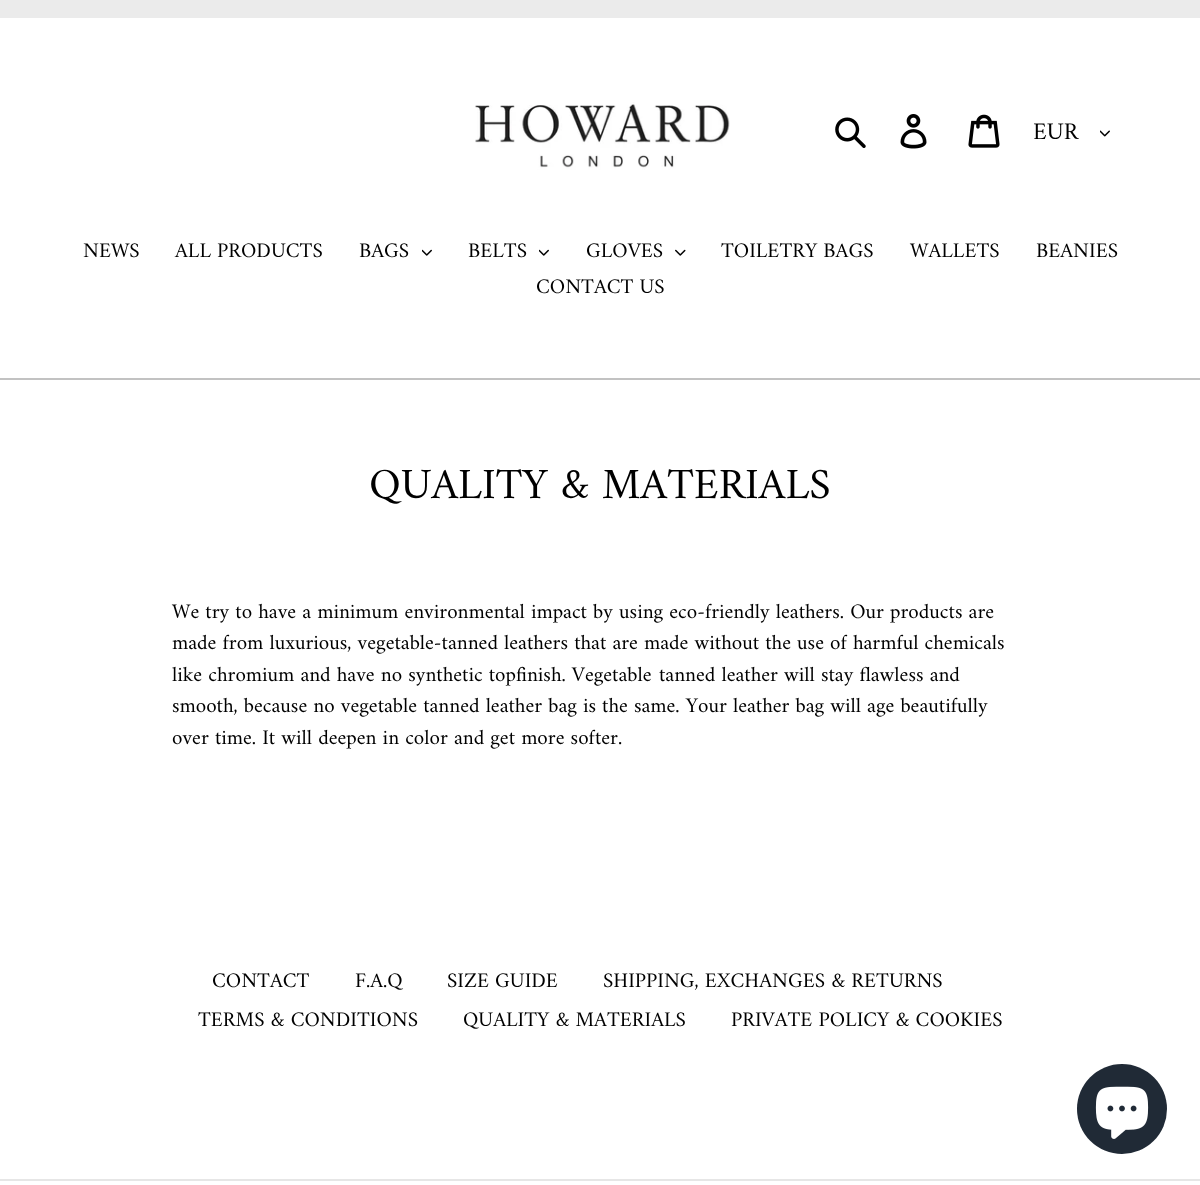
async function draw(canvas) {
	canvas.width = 1200;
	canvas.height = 1185;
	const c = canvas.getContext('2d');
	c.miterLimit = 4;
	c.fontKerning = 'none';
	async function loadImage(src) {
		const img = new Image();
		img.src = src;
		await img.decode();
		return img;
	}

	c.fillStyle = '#fff';
	c.fillRect(0, 0, 1200, 1185);
	c.fillStyle = '#ebebeb';
	c.fillRect(0, 0, 1200, 18);
	c.drawImage(await loadImage('img1.png'), 475, 102, 255, 68);
	c.drawImage(await loadImage('img2.png'), 835, 117, 31, 31);
	c.drawImage(await loadImage('img3.png'), 900, 114, 27, 35);
	c.drawImage(await loadImage('img4.png'), 968, 114, 32, 34);
	c.font = '24px Amiri';
	c.fillStyle = '#000';
	c.fillText('EUR', 1033, 139);
	c.drawImage(await loadImage('img5.png'), 1100, 130, 10, 7);
	c.fillStyle = '#c2c2c2';
	c.fillRect(0, 378, 1200, 2);
	c.font = '21px Amiri';
	c.fillStyle = '#000';
	for (const [text, x, y] of [
		['NEWS', 83, 257],
		['ALL PRODUCTS', 175, 257],
		['BAGS', 359, 257],
	]) {
		c.fillText(text, x, y);
	}
	c.drawImage(await loadImage('img6.png'), 422, 249, 10, 7);
	c.fillText('BELTS', 468, 257);
	c.drawImage(await loadImage('img6.png'), 539, 249, 10, 7);
	c.fillText('GLOVES', 586, 257);
	c.drawImage(await loadImage('img7.png'), 675, 249, 11, 7);
	for (const [text, x, y] of [
		['TOILETRY BAGS', 721, 257],
		['WALLETS', 910, 257],
		['BEANIES', 1036, 257],
		['CONTACT US', 536, 293],
	]) {
		c.fillText(text, x, y);
	}
	c.font = '43.5px Amiri';
	c.fillText('QUALITY & MATERIALS', 369, 498);
	c.font = '21px Amiri';
	for (const [text, x, y] of [
		['We try to have a minimum environmental impact by using eco-friendly leathers. Our products are', 172, 618],
		['made from luxurious, vegetable-tanned leathers that are made without the use of harmful chemicals', 172, 649],
		['like chromium and have no synthetic topfinish. Vegetable', 172, 681],
		['tanned leather will stay flawless and', 659, 681],
		['smooth, because no vegetable tanned leather bag is the same. Your leather bag will age beautifully', 172, 712],
		['over time. It will deepen in color and get more softer.', 172, 744],
		['CONTACT', 212, 987],
		['F.A.Q', 355, 987],
		['SIZE GUIDE', 447, 987],
		['SHIPPING, EXCHANGES & RETURNS', 603, 987],
		['TERMS & CONDITIONS', 198, 1026],
		['QUALITY & MATERIALS', 463, 1026],
		['PRIVATE POLICY & COOKIES', 731, 1026],
	]) {
		c.fillText(text, x, y);
	}
	c.fillStyle = '#e6e6e6';
	c.fillRect(0, 1179, 1200, 2);
	c.fillStyle = '#202a36';
	c.beginPath();
	c.arc(1122, 1109, 45, 0, 2 * Math.PI);
	c.fill();
	c.drawImage(await loadImage('img8.png'), 1095, 1086, 54, 53);
}

draw(document.querySelector('canvas'));
